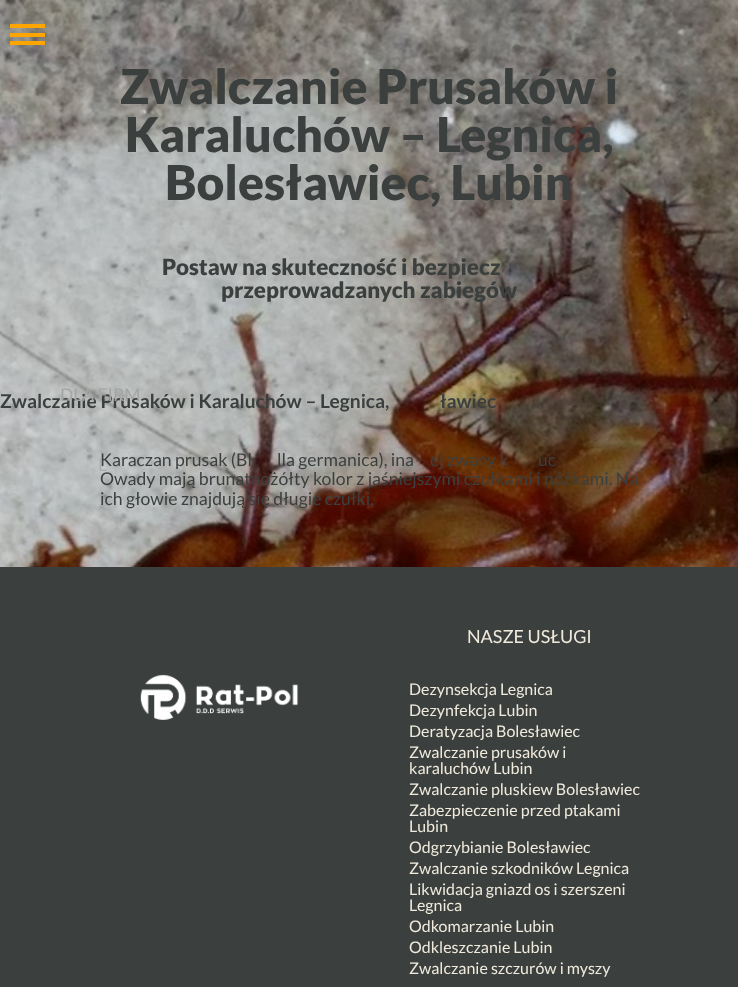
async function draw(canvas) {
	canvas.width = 738;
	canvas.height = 987;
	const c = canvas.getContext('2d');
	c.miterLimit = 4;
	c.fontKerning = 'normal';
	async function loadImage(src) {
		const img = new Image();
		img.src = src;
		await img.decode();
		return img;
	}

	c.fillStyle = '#fff';
	c.fillRect(0, 0, 738, 987);
	c.drawImage(await loadImage('img1.png'), 0, 0, 738, 567);
	for (const [x, y, w, h, color] of [
		[10, 41, 35, 4, '#ffa500'],
		[10, 24, 35, 4, '#ffa500'],
		[10, 33, 35, 4, '#ffa500'],
	]) {
		c.fillStyle = color;
		c.fillRect(x, y, w, h);
	}
	c.font = '900 48px Lato';
	c.fillStyle = '#3b403f';
	for (const [text, x, y] of [
		['Zwalczanie Prusaków i', 120, 104],
		['Karaluchów – Legnica,', 125, 152],
		['Bolesławiec, Lubin', 165, 200],
	]) {
		c.fillText(text, x, y);
	}
	c.font = '900 22.4px Lato';
	c.fillText('Postaw na skuteczność i bezpiecz', 162, 275);
	c.fillText('przeprowadzanych zabiegów', 221, 298);
	c.font = 'bold 19.2px Lato';
	c.fillText('Zwalczanie Prusaków i Karaluchów – Legnica,', 0, 408);
	c.font = '17.6px Lato';
	c.fillStyle = '#a3a5a4';
	c.fillText('DLA FIRM', 60, 401);
	c.fillStyle = '#3b403f';
	c.fillText('Karaczan prusak (Bl', 100, 466);
	c.fillStyle = '#abafb0';
	c.fillText('L', 98, 471);
	c.font = 'bold 19.2px Lato';
	c.fillStyle = '#3b403f';
	c.fillText('ławiec', 440, 408);
	c.font = '17.6px Lato';
	for (const [text, x, y] of [
		['lla germanica), ina', 277, 466],
		['ej zwany k', 430, 466],
		['uc', 538, 466],
		['Owady mają brunatnożółty kolor z jaśniejszymi czułkami i nóżkami. Na', 100, 485],
		['ich głowie znajdują się długie czułki.', 100, 505],
	]) {
		c.fillText(text, x, y);
	}
	c.fillRect(0, 567, 738, 420);
	c.drawImage(await loadImage('img2.png'), 140, 674, 159, 46);
	c.font = '18px Lato';
	c.fillStyle = '#f0eadc';
	c.fillText('NASZE USŁUGI', 467, 643);
	c.font = '16px Lato';
	for (const [text, x, y] of [
		['Dezynsekcja Legnica', 409, 695],
		['Dezynfekcja Lubin', 409, 716],
		['Deratyzacja Bolesławiec', 409, 737],
		['Zwalczanie prusaków i', 409, 758],
		['karaluchów Lubin', 409, 774],
		['Zwalczanie pluskiew Bolesławiec', 409, 795],
		['Zabezpieczenie przed ptakami', 409, 816],
		['Lubin', 409, 832],
		['Odgrzybianie Bolesławiec', 409, 853],
		['Zwalczanie szkodników Legnica', 409, 874],
		['Likwidacja gniazd os i szerszeni', 409, 895],
		['Legnica', 409, 911],
		['Odkomarzanie Lubin', 409, 932],
		['Odkleszczanie Lubin', 409, 953],
		['Zwalczanie szczurów i myszy', 409, 974],
	]) {
		c.fillText(text, x, y);
	}
}

draw(document.querySelector('canvas'));
